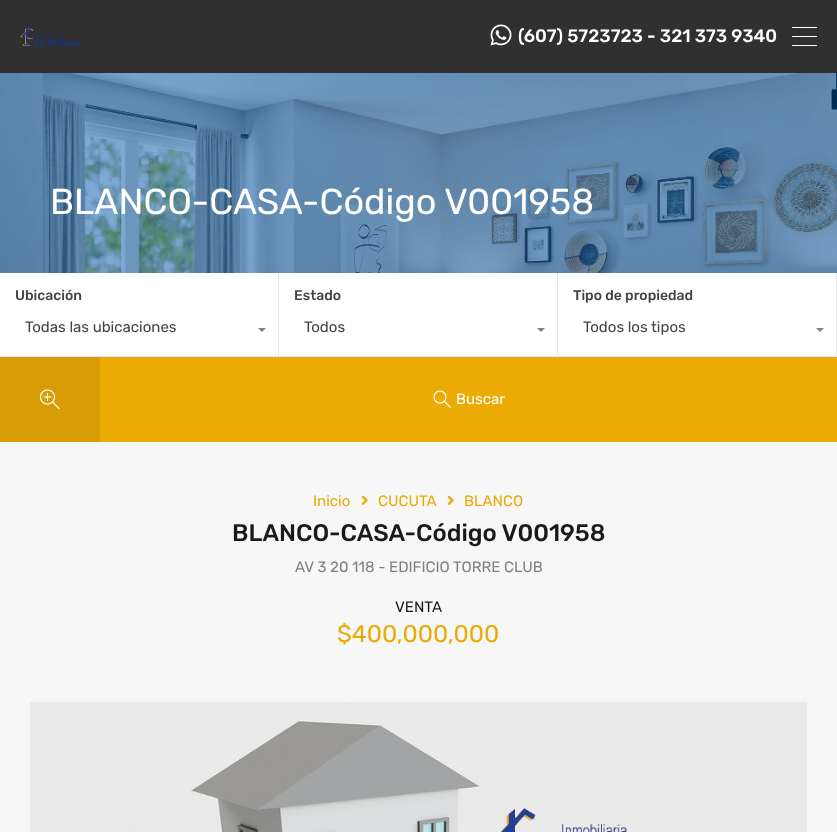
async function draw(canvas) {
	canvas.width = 837;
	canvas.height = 832;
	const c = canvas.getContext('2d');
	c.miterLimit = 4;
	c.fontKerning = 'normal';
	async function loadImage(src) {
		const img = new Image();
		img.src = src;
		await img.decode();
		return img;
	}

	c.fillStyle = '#f7f7f7';
	c.fillRect(0, 0, 837, 832);
	c.fillStyle = '#303030';
	c.fillRect(0, 0, 837, 73);
	c.drawImage(await loadImage('img1.png'), 20, 27, 60, 19);
	c.drawImage(await loadImage('img2.png'), 490, 24, 22, 22);
	c.font = '500 18px Rubik';
	c.fillStyle = '#fff';
	c.fillText('(607) 5723723 - 321 373 9340', 518, 42);
	c.beginPath();
	c.roundRect(792, 36, 25, 1, 0.5);
	c.fill();
	c.beginPath();
	c.roundRect(792, 27, 25, 1, 0.5);
	c.fill();
	c.beginPath();
	c.roundRect(792, 45, 25, 1, 0.5);
	c.fill();
	c.drawImage(await loadImage('img3.png'), 0, 73, 837, 200);
	c.font = '36px Rubik';
	c.fillText('BLANCO-CASA-Código V001958', 50, 214);
	c.fillRect(0, 273, 837, 84);
	c.fillStyle = '#e6e6e6';
	c.beginPath();
	c.moveTo(279, 273);
	c.lineTo(279, 357);
	c.lineTo(278, 356);
	c.lineTo(278, 273);
	c.closePath();
	c.fill();
	c.fillStyle = '#80808033';
	c.beginPath();
	c.moveTo(279, 357);
	c.lineTo(0, 357);
	c.lineTo(0, 356);
	c.lineTo(278, 356);
	c.closePath();
	c.fill();
	c.font = '500 14px Rubik';
	c.fillStyle = '#444';
	c.fillText('Ubicación', 15, 300);
	c.font = '15px Rubik';
	c.fillText('Todas las ubicaciones', 25, 332);
	c.fillStyle = '#808080';
	c.beginPath();
	c.moveTo(258, 328);
	c.lineTo(266, 328);
	c.lineTo(262, 332);
	c.closePath();
	c.fill();
	c.fillStyle = '#e6e6e6';
	c.beginPath();
	c.moveTo(558, 273);
	c.lineTo(558, 357);
	c.lineTo(557, 356);
	c.lineTo(557, 273);
	c.closePath();
	c.fill();
	c.fillStyle = '#80808033';
	c.beginPath();
	c.moveTo(558, 357);
	c.lineTo(279, 357);
	c.lineTo(279, 356);
	c.lineTo(557, 356);
	c.closePath();
	c.fill();
	c.font = '500 14px Rubik';
	c.fillStyle = '#444';
	c.fillText('Estado', 294, 300);
	c.font = '15px Rubik';
	c.fillText('Todos', 304, 332);
	c.fillStyle = '#808080';
	c.beginPath();
	c.moveTo(537, 328);
	c.lineTo(545, 328);
	c.lineTo(541, 332);
	c.closePath();
	c.fill();
	c.fillStyle = '#e6e6e6';
	c.beginPath();
	c.moveTo(837, 273);
	c.lineTo(837, 357);
	c.lineTo(836, 356);
	c.lineTo(836, 273);
	c.closePath();
	c.fill();
	c.fillStyle = '#80808033';
	c.beginPath();
	c.moveTo(837, 357);
	c.lineTo(558, 357);
	c.lineTo(558, 356);
	c.lineTo(836, 356);
	c.closePath();
	c.fill();
	c.font = '500 14px Rubik';
	c.fillStyle = '#444';
	c.fillText('Tipo de propiedad', 573, 300);
	c.font = '15px Rubik';
	c.fillText('Todos los tipos', 583, 332);
	c.fillStyle = '#808080';
	c.beginPath();
	c.moveTo(816, 328);
	c.lineTo(824, 328);
	c.lineTo(820, 332);
	c.closePath();
	c.fill();
	c.fillStyle = '#d89c04';
	c.fillRect(0, 357, 100, 85);
	c.drawImage(await loadImage('img4.png'), 40, 389, 20, 21);
	c.fillStyle = '#ebaa04';
	c.fillRect(100, 357, 737, 85);
	c.beginPath();
	c.arc(440, 397, 6, 0, 2 * Math.PI);
	c.strokeStyle = '#fff';
	c.lineWidth = 1.1;
	c.stroke();
	c.beginPath();
	c.moveTo(444, 401);
	c.lineTo(450.5, 407.5);
	c.lineJoin = 'round';
	c.stroke();
	c.fillStyle = '#fff';
	c.fillText('Buscar', 456, 404);
	c.fillStyle = '#ebaa04';
	c.fillText('Inicio', 313, 506);
	c.drawImage(await loadImage('img5.png'), 361, 495, 7, 10);
	c.fillText('CUCUTA', 378, 506);
	c.drawImage(await loadImage('img5.png'), 447, 495, 7, 10);
	c.fillText('BLANCO', 464, 506);
	c.font = '500 24px Rubik';
	c.fillStyle = '#1a1a1a';
	c.fillText('BLANCO-CASA-Código V001958', 232, 541);
	c.font = '15px Rubik';
	c.fillStyle = '#808080';
	c.fillText('AV 3 20 118 - EDIFICIO TORRE CLUB', 295, 572);
	c.fillStyle = '#1a1a1a';
	c.fillText('VENTA', 395, 612);
	c.font = '24px Rubik';
	c.fillStyle = '#ebaa04';
	c.fillText('$400,000,000', 337, 642);
	c.drawImage(await loadImage('img6.png'), 30, 702, 777, 130);
}

draw(document.querySelector('canvas'));
